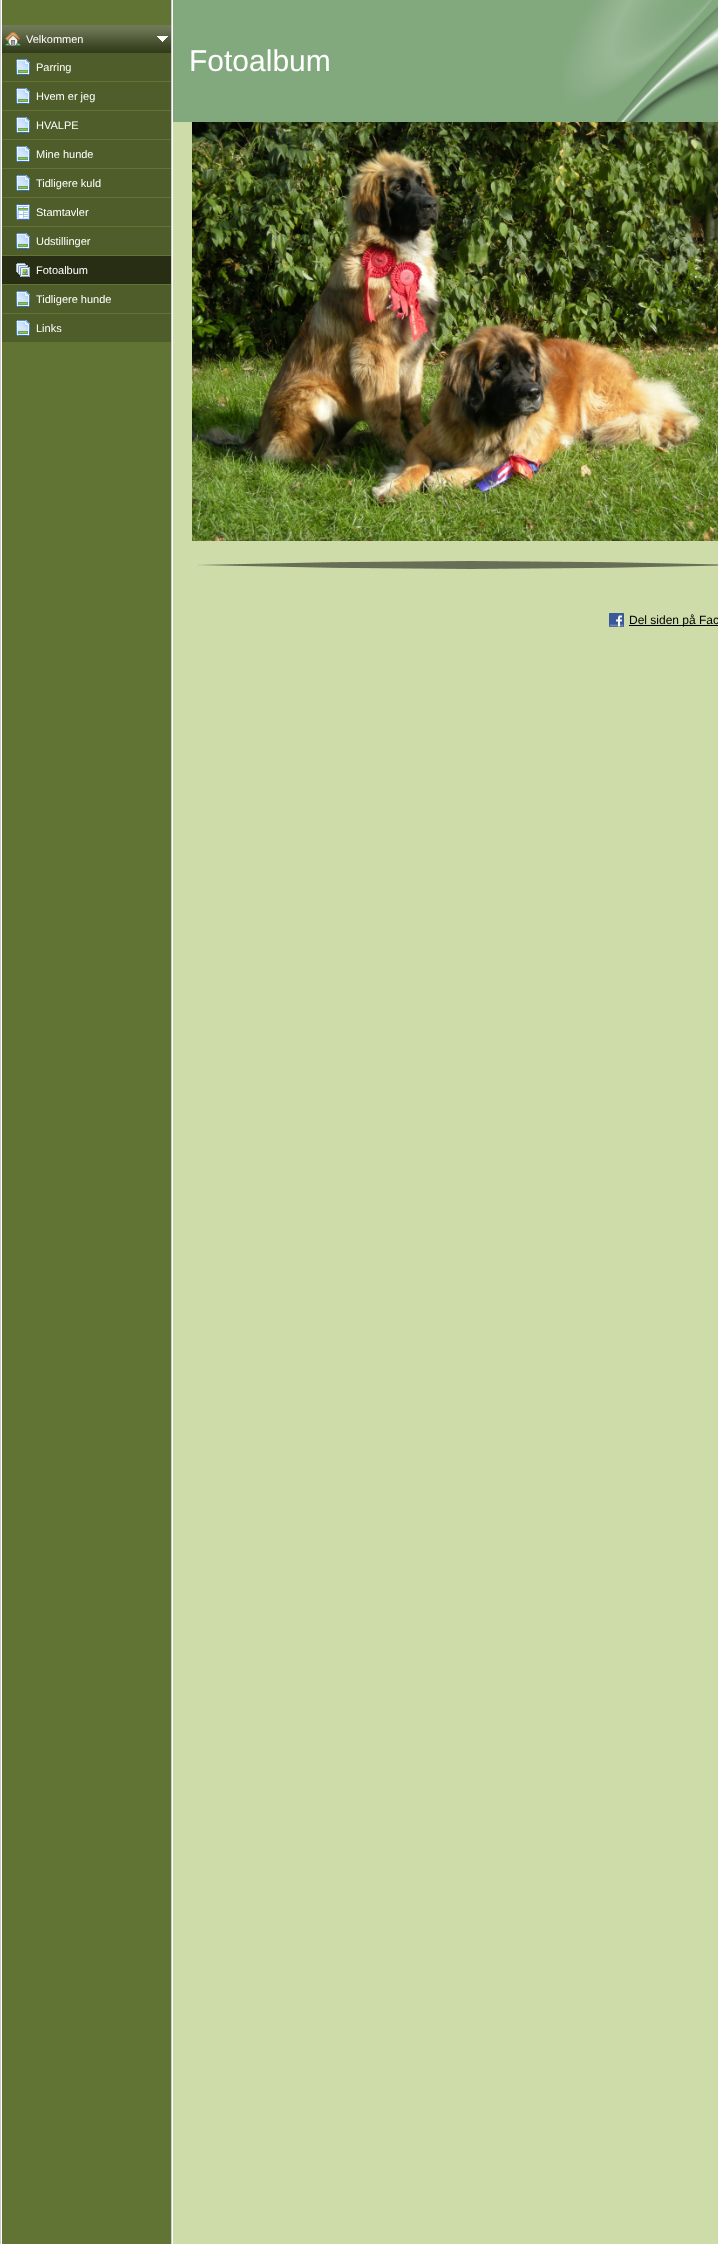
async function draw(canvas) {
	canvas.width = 718;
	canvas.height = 2244;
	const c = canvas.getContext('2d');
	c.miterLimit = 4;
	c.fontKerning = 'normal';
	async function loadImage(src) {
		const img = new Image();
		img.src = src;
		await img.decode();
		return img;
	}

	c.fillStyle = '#fff';
	c.fillRect(0, 0, 718, 2244);
	c.fillStyle = '#ccc';
	c.fillRect(0, 0, 1, 2244);
	c.fillStyle = '#617433';
	c.fillRect(2, 0, 169, 2244);
	c.drawImage(await loadImage('img1.png'), 2, 25, 169, 28);
	c.drawImage(await loadImage('img2.png'), 5, 32, 16, 14);
	c.drawImage(await loadImage('img3.png'), 157, 36, 11, 6);
	c.font = '11px Liberation Sans';
	c.fillStyle = '#fff';
	c.fillText('Velkommen', 26, 43);
	c.fillStyle = '#4e5d29';
	c.fillRect(2, 53, 169, 28);
	c.drawImage(await loadImage('img4.png'), 16, 59, 14, 16);
	c.fillStyle = '#fff';
	c.fillText('Parring', 36, 71);
	c.fillStyle = '#4e5d29';
	c.fillRect(2, 82, 169, 28);
	c.drawImage(await loadImage('img4.png'), 16, 88, 14, 16);
	c.fillStyle = '#fff';
	c.fillText('Hvem er jeg', 36, 100);
	c.fillStyle = '#4e5d29';
	c.fillRect(2, 111, 169, 28);
	c.drawImage(await loadImage('img4.png'), 16, 117, 14, 16);
	c.fillStyle = '#fff';
	c.fillText('HVALPE', 36, 129);
	c.fillStyle = '#4e5d29';
	c.fillRect(2, 140, 169, 28);
	c.drawImage(await loadImage('img4.png'), 16, 146, 14, 16);
	c.fillStyle = '#fff';
	c.fillText('Mine hunde', 36, 158);
	c.fillStyle = '#4e5d29';
	c.fillRect(2, 169, 169, 28);
	c.drawImage(await loadImage('img4.png'), 16, 175, 14, 16);
	c.fillStyle = '#fff';
	c.fillText('Tidligere kuld', 36, 187);
	c.fillStyle = '#4e5d29';
	c.fillRect(2, 198, 169, 28);
	c.drawImage(await loadImage('img5.png'), 16, 204, 14, 16);
	c.fillStyle = '#fff';
	c.fillText('Stamtavler', 36, 216);
	c.fillStyle = '#4e5d29';
	c.fillRect(2, 227, 169, 28);
	c.drawImage(await loadImage('img4.png'), 16, 233, 14, 16);
	c.fillStyle = '#fff';
	c.fillText('Udstillinger', 36, 245);
	c.fillStyle = '#272e14';
	c.fillRect(2, 256, 169, 28);
	c.drawImage(await loadImage('img6.png'), 16, 263, 14, 14);
	c.fillStyle = '#fff';
	c.fillText('Fotoalbum', 36, 274);
	c.fillStyle = '#4e5d29';
	c.fillRect(2, 285, 169, 28);
	c.drawImage(await loadImage('img4.png'), 16, 291, 14, 16);
	c.fillStyle = '#fff';
	c.fillText('Tidligere hunde', 36, 303);
	c.fillStyle = '#4e5d29';
	c.fillRect(2, 314, 169, 28);
	c.drawImage(await loadImage('img4.png'), 16, 320, 14, 16);
	c.fillStyle = '#fff';
	c.fillText('Links', 36, 332);
	for (const [x, y, w, h, color] of [
		[171, 0, 1, 2244, '#ccc'],
		[173, 122, 545, 2122, '#cedcaa'],
		[173, 0, 545, 122, '#82a87e'],
	]) {
		c.fillStyle = color;
		c.fillRect(x, y, w, h);
	}
	c.font = '30px Liberation Sans';
	c.fillStyle = '#fff';
	c.fillText('Fotoalbum', 189, 71);
	c.drawImage(await loadImage('img7.png'), 564, 0, 154, 122);
	c.drawImage(await loadImage('img8.png'), 192, 122, 526, 419);
	c.drawImage(await loadImage('img9.png'), 198, 561, 520, 8);
	c.drawImage(await loadImage('img10.png'), 609, 613, 15, 14);
	c.fillStyle = '#000';
	c.fillRect(629, 625, 89, 1);
	c.font = '12px Liberation Sans';
	c.fillText('Del siden på Fac', 629, 624);
}

draw(document.querySelector('canvas'));
